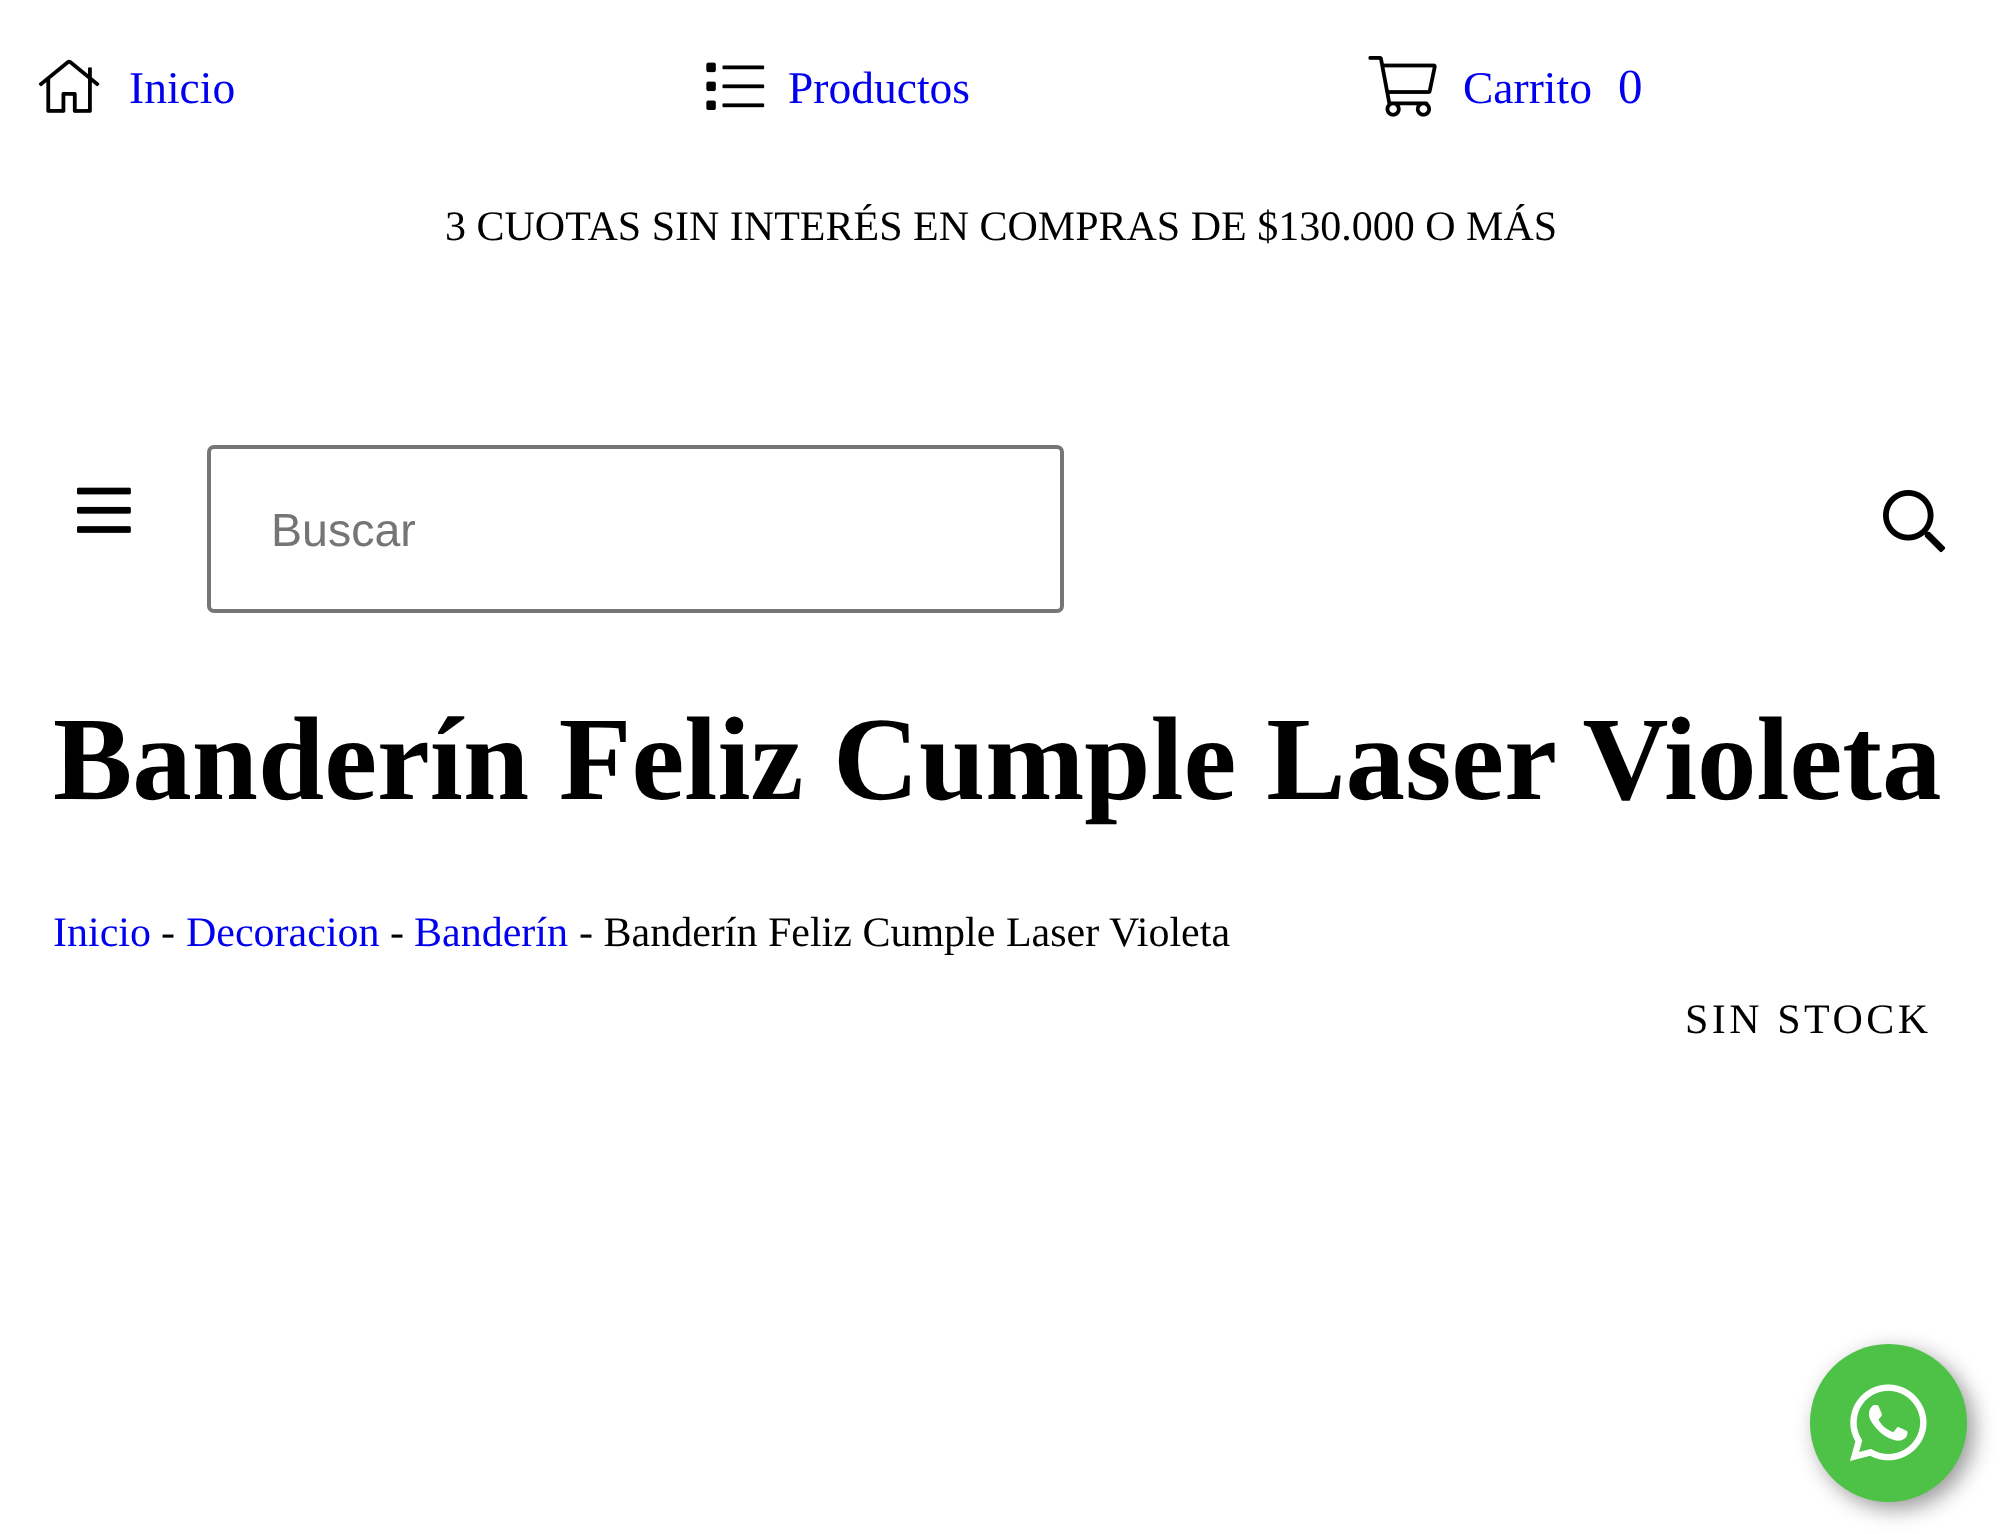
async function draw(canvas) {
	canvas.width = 2001;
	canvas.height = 1534;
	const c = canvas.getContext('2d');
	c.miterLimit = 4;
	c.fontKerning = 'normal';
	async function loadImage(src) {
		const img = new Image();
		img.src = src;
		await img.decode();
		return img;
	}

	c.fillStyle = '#fff';
	c.fillRect(0, 0, 2001, 1534);
	c.drawImage(await loadImage('img1.png'), 38, 59, 62, 54);
	c.font = '45.5px Liberation Serif';
	c.fillStyle = '#00e';
	c.fillText('Inicio', 129, 103);
	c.drawImage(await loadImage('img2.png'), 706, 62, 59, 48);
	c.fillText('Productos', 788, 103);
	c.drawImage(await loadImage('img3.png'), 1368, 56, 69, 61);
	c.fillText('Carrito', 1463, 103);
	c.font = '49px Liberation Serif';
	c.fillText('0', 1618, 103);
	c.font = '42px Liberation Serif';
	c.fillStyle = '#000';
	c.fillText('3 CUOTAS SIN INTERÉS EN COMPRAS DE $130.000 O MÁS', 445, 240);
	c.drawImage(await loadImage('img4.png'), 77, 487, 54, 46);
	c.beginPath();
	c.roundRect(209, 447, 853, 164, 5);
	c.strokeStyle = '#767676';
	c.lineWidth = 4;
	c.stroke();
	c.font = '46.5px Liberation Sans';
	c.fillStyle = '#757575';
	c.fillText('Buscar', 271, 546);
	c.drawImage(await loadImage('img5.png'), 1883, 490, 63, 63);
	c.font = 'bold 119px Liberation Serif';
	c.fillStyle = '#000';
	c.fillText('Banderín Feliz Cumple Laser Violeta', 53, 799);
	c.font = '42px Liberation Serif';
	c.fillStyle = '#00e';
	c.fillText('Inicio', 53, 946);
	c.fillStyle = '#000';
	c.fillText('-', 161, 946);
	c.fillStyle = '#00e';
	c.fillText('Decoracion', 186, 946);
	c.fillStyle = '#000';
	c.fillText('-', 390, 946);
	c.fillStyle = '#00e';
	c.fillText('Banderín', 414, 946);
	c.fillStyle = '#000';
	c.fillText('- Banderín Feliz Cumple Laser Violeta', 579, 946);
	c.letterSpacing = '3.5px';
	c.fillText('SIN STOCK', 1685, 1033);
	c.fillStyle = '#00000066';
	c.filter = 'blur(10.5px)';
	c.beginPath();
	c.roundRect(1817, 1351, 157, 158, 78.5);
	c.fill();
	c.filter = 'none';
	c.fillStyle = '#4dc247';
	c.beginPath();
	c.roundRect(1810, 1344, 157, 158, 78.5);
	c.fill();
	c.drawImage(await loadImage('img6.png'), 1850, 1384, 77, 77);
}

draw(document.querySelector('canvas'));
